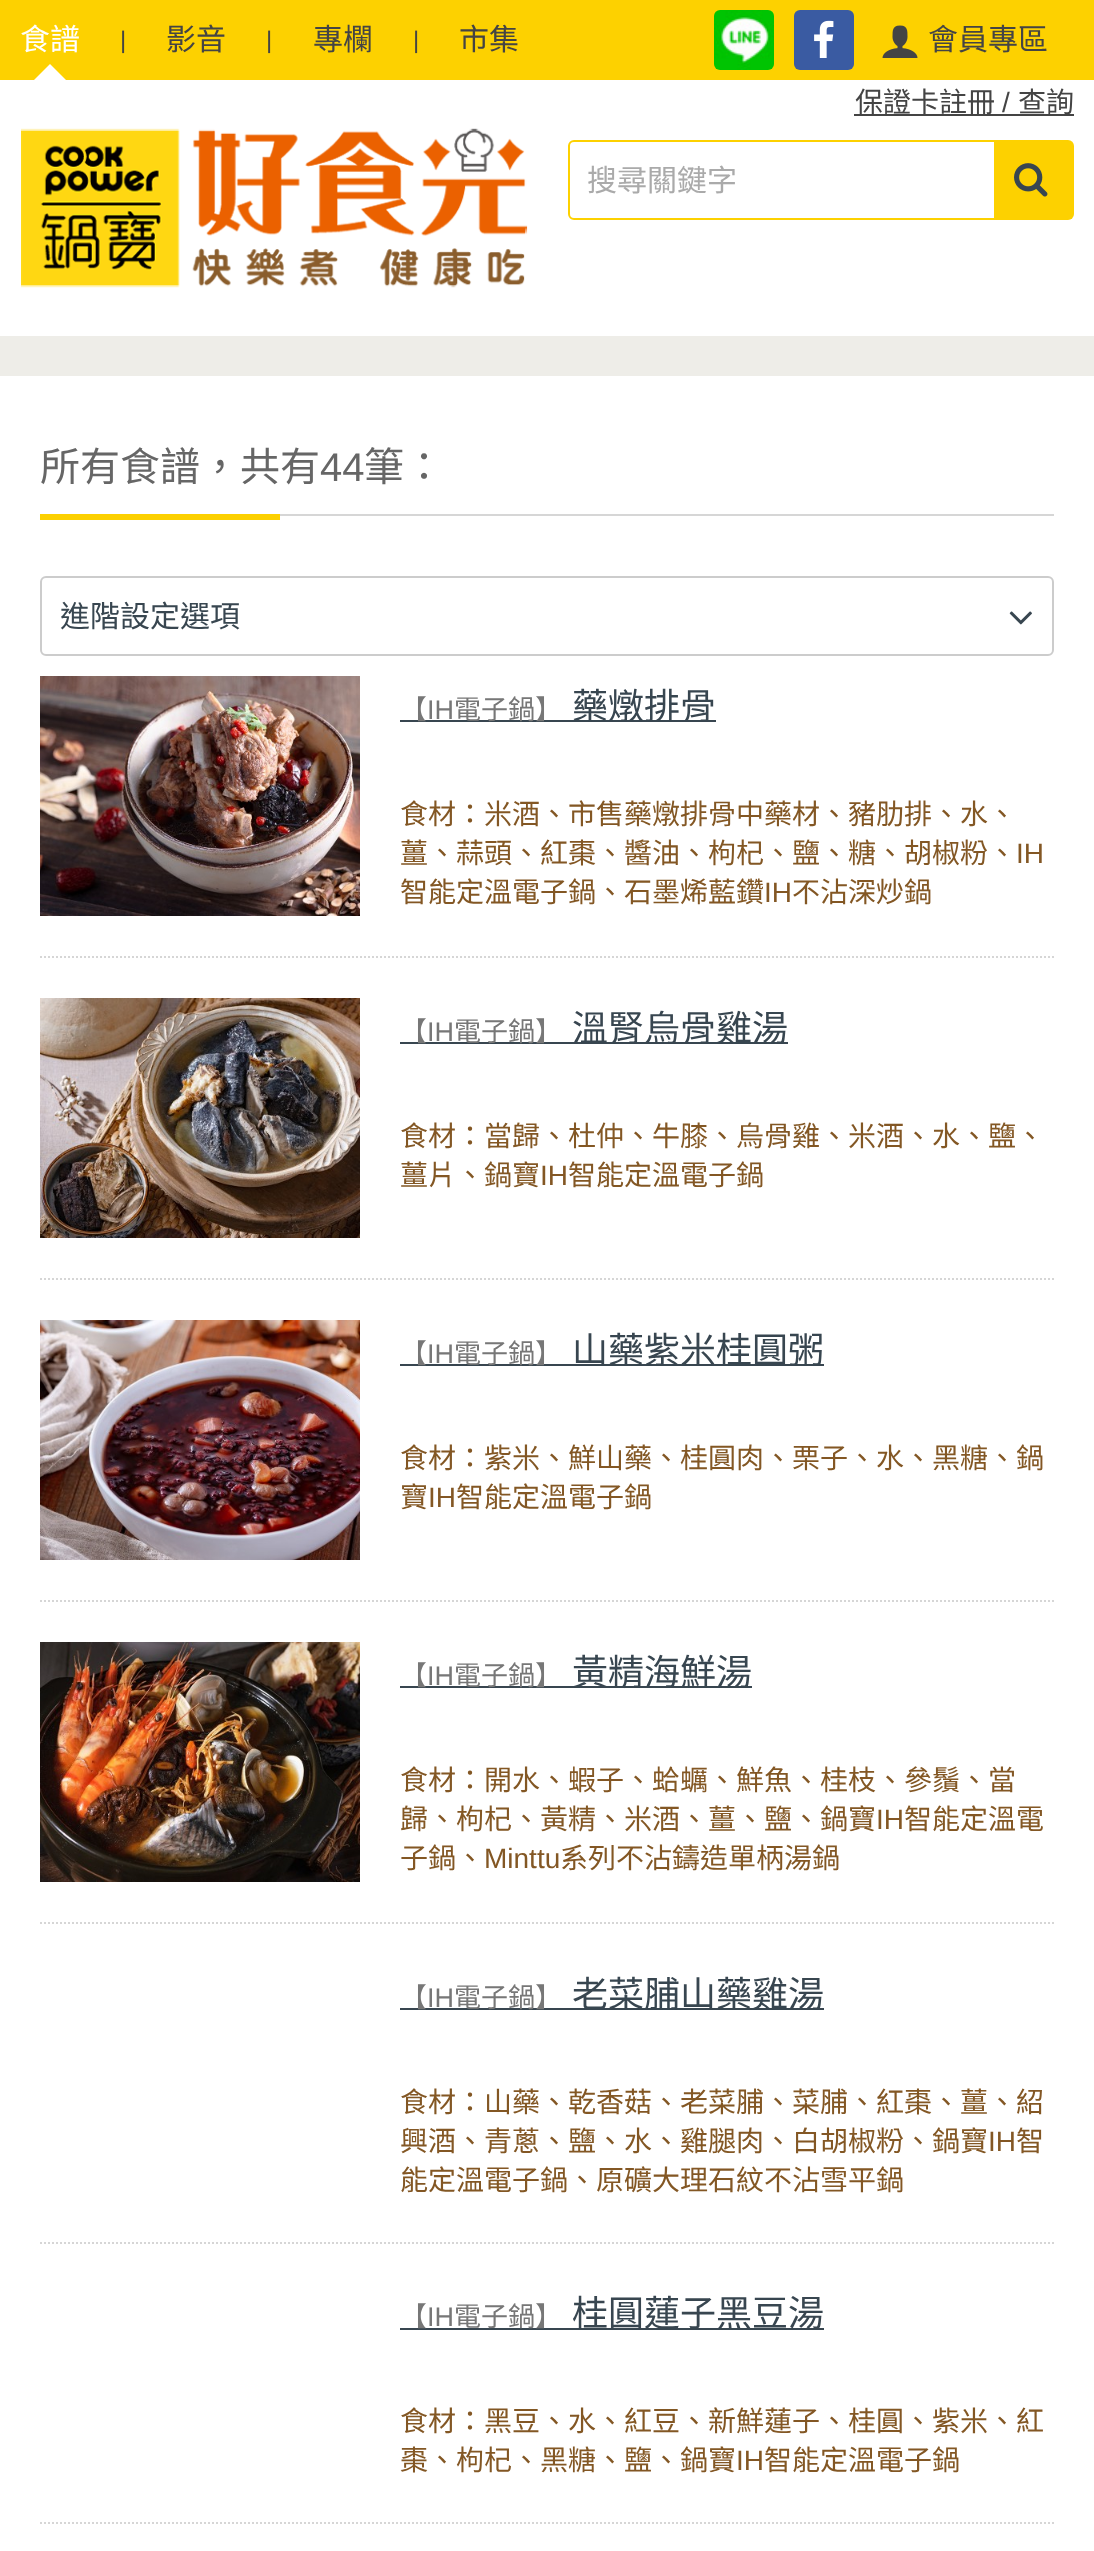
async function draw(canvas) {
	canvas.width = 1094;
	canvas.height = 2551;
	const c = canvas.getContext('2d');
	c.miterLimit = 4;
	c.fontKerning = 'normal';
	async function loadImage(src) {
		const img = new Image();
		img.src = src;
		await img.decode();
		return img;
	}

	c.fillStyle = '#fff';
	c.fillRect(0, 0, 1094, 2551);
	c.fillStyle = '#fdd100';
	c.fillRect(0, 0, 1094, 80);
	c.font = '30px Noto Sans CJK TC';
	c.fillStyle = '#fff';
	c.fillText('食譜', 20, 50);
	c.beginPath();
	c.moveTo(66, 80);
	c.lineTo(34, 80);
	c.lineTo(50, 64);
	c.closePath();
	c.fill();
	c.font = '24px Liberation Sans';
	c.fillStyle = '#444';
	c.fillText('|', 120, 48);
	c.font = '30px Noto Sans CJK TC';
	c.fillText('影音', 166, 50);
	c.font = '24px Liberation Sans';
	c.fillText('|', 266, 48);
	c.font = '30px Noto Sans CJK TC';
	c.fillText('專欄', 313, 50);
	c.font = '24px Liberation Sans';
	c.fillText('|', 413, 48);
	c.font = '30px Noto Sans CJK TC';
	c.fillText('市集', 459, 50);
	c.drawImage(await loadImage('img1.png'), 714, 10, 60, 60);
	c.fillStyle = '#3a5ba2';
	c.beginPath();
	c.roundRect(794, 10, 60, 60, 6);
	c.fill();
	c.drawImage(await loadImage('img2.png'), 814, 20, 20, 38);
	c.drawImage(await loadImage('img3.png'), 882, 25, 36, 33);
	c.fillStyle = '#444';
	c.fillText('會員專區', 928, 50);
	c.fillRect(854, 114, 220, 2);
	c.font = '28px Noto Sans CJK TC';
	c.fillText('保證卡註冊', 855, 112);
	c.font = '28px Liberation Sans';
	c.fillText('/', 1002, 112);
	c.font = '28px Noto Sans CJK TC';
	c.fillText('查詢', 1018, 112);
	c.drawImage(await loadImage('img4.png'), 21, 128, 507, 160);
	c.fillStyle = '#fdd100';
	c.beginPath();
	c.roundRect(994, 140, 80, 80, [0, 6, 6, 0]);
	c.fill();
	c.fillStyle = '#fff';
	c.beginPath();
	c.roundRect(569, 141, 426, 78, [5, 0, 0, 5]);
	c.fill();
	c.strokeStyle = '#fdd100';
	c.lineWidth = 2;
	c.stroke();
	c.font = '30px Noto Sans CJK TC';
	c.fillStyle = '#aaa';
	c.fillText('搜尋關鍵字', 587, 191);
	c.drawImage(await loadImage('img5.png'), 1014, 163, 34, 34);
	c.fillStyle = '#eeede8';
	c.fillRect(0, 336, 1094, 40);
	c.fillStyle = '#d6d6d6';
	c.fillRect(280, 514, 774, 2);
	c.font = '40px Noto Sans CJK TC';
	c.fillStyle = '#666';
	c.fillText('所有食譜，共有', 40, 481);
	c.font = '40px Liberation Sans';
	c.fillText('44', 320, 481);
	c.font = '40px Noto Sans CJK TC';
	c.fillText('筆：', 364, 481);
	c.fillStyle = '#fcd000';
	c.fillRect(40, 514, 240, 6);
	c.beginPath();
	c.roundRect(41, 577, 1012, 78, 5);
	c.strokeStyle = '#ccc';
	c.stroke();
	c.font = '30px Noto Sans CJK TC';
	c.fillStyle = '#384650';
	c.fillText('進階設定選項', 60, 627);
	c.drawImage(await loadImage('img6.png'), 1009, 611, 23, 14);
	c.beginPath();
	c.moveTo(40, 957);
	c.lineTo(1054, 957);
	c.strokeStyle = '#d6d6d6';
	c.setLineDash([2, 2]);
	c.stroke();
	c.drawImage(await loadImage('img7.png'), 40, 676, 320, 240);
	c.fillRect(400, 720, 316, 2);
	c.font = '27px Noto Sans CJK TC';
	c.fillStyle = '#777';
	c.fillText('【', 400, 719);
	c.font = '27px Liberation Sans';
	c.fillText('IH', 427, 719);
	c.font = '27px Noto Sans CJK TC';
	c.fillText('電子鍋】', 454, 719);
	c.font = '36px Noto Sans CJK TC';
	c.fillStyle = '#384650';
	c.fillText('藥燉排骨', 572, 719);
	c.font = '28px Noto Sans CJK TC';
	c.fillStyle = '#835724';
	c.fillText('食材：米酒、市售藥燉排骨中藥材、豬肋排、水、', 400, 824);
	c.fillText('薑、蒜頭、紅棗、醬油、枸杞、鹽、糖、胡椒粉、', 400, 863);
	c.font = '28px Liberation Sans';
	c.fillText('IH', 1016, 863);
	c.font = '28px Noto Sans CJK TC';
	c.fillText('智能定溫電子鍋、石墨烯藍鑽', 400, 902);
	c.font = '28px Liberation Sans';
	c.fillText('IH', 764, 902);
	c.font = '28px Noto Sans CJK TC';
	c.fillText('不沾深炒鍋', 792, 902);
	c.beginPath();
	c.moveTo(40, 1279);
	c.lineTo(1054, 1279);
	c.stroke();
	c.drawImage(await loadImage('img8.png'), 40, 998, 320, 240);
	c.fillStyle = '#384650';
	c.fillRect(400, 1042, 388, 2);
	c.font = '27px Noto Sans CJK TC';
	c.fillStyle = '#777';
	c.fillText('【', 400, 1041);
	c.font = '27px Liberation Sans';
	c.fillText('IH', 427, 1041);
	c.font = '27px Noto Sans CJK TC';
	c.fillText('電子鍋】', 454, 1041);
	c.font = '36px Noto Sans CJK TC';
	c.fillStyle = '#384650';
	c.fillText('溫腎烏骨雞湯', 572, 1041);
	c.font = '28px Noto Sans CJK TC';
	c.fillStyle = '#835724';
	c.fillText('食材：當歸、杜仲、牛膝、烏骨雞、米酒、水、鹽、', 400, 1146);
	c.fillText('薑片、鍋寶', 400, 1185);
	c.font = '28px Liberation Sans';
	c.fillText('IH', 540, 1185);
	c.font = '28px Noto Sans CJK TC';
	c.fillText('智能定溫電子鍋', 568, 1185);
	c.beginPath();
	c.moveTo(40, 1601);
	c.lineTo(1054, 1601);
	c.stroke();
	c.drawImage(await loadImage('img9.png'), 40, 1320, 320, 240);
	c.fillStyle = '#384650';
	c.fillRect(400, 1364, 424, 2);
	c.font = '27px Noto Sans CJK TC';
	c.fillStyle = '#777';
	c.fillText('【', 400, 1363);
	c.font = '27px Liberation Sans';
	c.fillText('IH', 427, 1363);
	c.font = '27px Noto Sans CJK TC';
	c.fillText('電子鍋】', 454, 1363);
	c.font = '36px Noto Sans CJK TC';
	c.fillStyle = '#384650';
	c.fillText('山藥紫米桂圓粥', 572, 1363);
	c.font = '28px Noto Sans CJK TC';
	c.fillStyle = '#835724';
	c.fillText('食材：紫米、鮮山藥、桂圓肉、栗子、水、黑糖、鍋', 400, 1468);
	c.fillText('寶', 400, 1507);
	c.font = '28px Liberation Sans';
	c.fillText('IH', 428, 1507);
	c.font = '28px Noto Sans CJK TC';
	c.fillText('智能定溫電子鍋', 456, 1507);
	c.beginPath();
	c.moveTo(40, 1923);
	c.lineTo(1054, 1923);
	c.stroke();
	c.drawImage(await loadImage('img10.png'), 40, 1642, 320, 240);
	c.fillStyle = '#384650';
	c.fillRect(400, 1686, 352, 2);
	c.font = '27px Noto Sans CJK TC';
	c.fillStyle = '#777';
	c.fillText('【', 400, 1685);
	c.font = '27px Liberation Sans';
	c.fillText('IH', 427, 1685);
	c.font = '27px Noto Sans CJK TC';
	c.fillText('電子鍋】', 454, 1685);
	c.font = '36px Noto Sans CJK TC';
	c.fillStyle = '#384650';
	c.fillText('黃精海鮮湯', 572, 1685);
	c.font = '28px Noto Sans CJK TC';
	c.fillStyle = '#835724';
	c.fillText('食材：開水、蝦子、蛤蠣、鮮魚、桂枝、參鬚、當', 400, 1790);
	c.fillText('歸、枸杞、黃精、米酒、薑、鹽、鍋寶', 400, 1829);
	c.font = '28px Liberation Sans';
	c.fillText('IH', 876, 1829);
	c.font = '28px Noto Sans CJK TC';
	c.fillText('智能定溫電', 904, 1829);
	c.fillText('子鍋、', 400, 1868);
	c.font = '28px Liberation Sans';
	c.fillText('Minttu', 484, 1868);
	c.font = '28px Noto Sans CJK TC';
	c.fillText('系列不沾鑄造單柄湯鍋', 560, 1868);
	c.beginPath();
	c.moveTo(40, 2243);
	c.lineTo(1054, 2243);
	c.stroke();
	c.fillStyle = '#384650';
	c.fillRect(400, 2008, 424, 2);
	c.font = '27px Noto Sans CJK TC';
	c.fillStyle = '#777';
	c.fillText('【', 400, 2007);
	c.font = '27px Liberation Sans';
	c.fillText('IH', 427, 2007);
	c.font = '27px Noto Sans CJK TC';
	c.fillText('電子鍋】', 454, 2007);
	c.font = '36px Noto Sans CJK TC';
	c.fillStyle = '#384650';
	c.fillText('老菜脯山藥雞湯', 572, 2007);
	c.font = '28px Noto Sans CJK TC';
	c.fillStyle = '#835724';
	c.fillText('食材：山藥、乾香菇、老菜脯、菜脯、紅棗、薑、紹', 400, 2112);
	c.fillText('興酒、青蔥、鹽、水、雞腿肉、白胡椒粉、鍋寶', 400, 2151);
	c.font = '28px Liberation Sans';
	c.fillText('IH', 988, 2151);
	c.font = '28px Noto Sans CJK TC';
	c.fillText('智', 1016, 2151);
	c.fillText('能定溫電子鍋、原礦大理石紋不沾雪平鍋', 400, 2190);
	c.beginPath();
	c.moveTo(40, 2523);
	c.lineTo(1054, 2523);
	c.stroke();
	c.fillStyle = '#384650';
	c.fillRect(400, 2328, 424, 2);
	c.font = '27px Noto Sans CJK TC';
	c.fillStyle = '#777';
	c.fillText('【', 400, 2326);
	c.font = '27px Liberation Sans';
	c.fillText('IH', 427, 2326);
	c.font = '27px Noto Sans CJK TC';
	c.fillText('電子鍋】', 454, 2326);
	c.font = '36px Noto Sans CJK TC';
	c.fillStyle = '#384650';
	c.fillText('桂圓蓮子黑豆湯', 572, 2326);
	c.font = '28px Noto Sans CJK TC';
	c.fillStyle = '#835724';
	c.fillText('食材：黑豆、水、紅豆、新鮮蓮子、桂圓、紫米、紅', 400, 2431);
	c.fillText('棗、枸杞、黑糖、鹽、鍋寶', 400, 2470);
	c.font = '28px Liberation Sans';
	c.fillText('IH', 736, 2470);
	c.font = '28px Noto Sans CJK TC';
	c.fillText('智能定溫電子鍋', 764, 2470);
}

draw(document.querySelector('canvas'));
